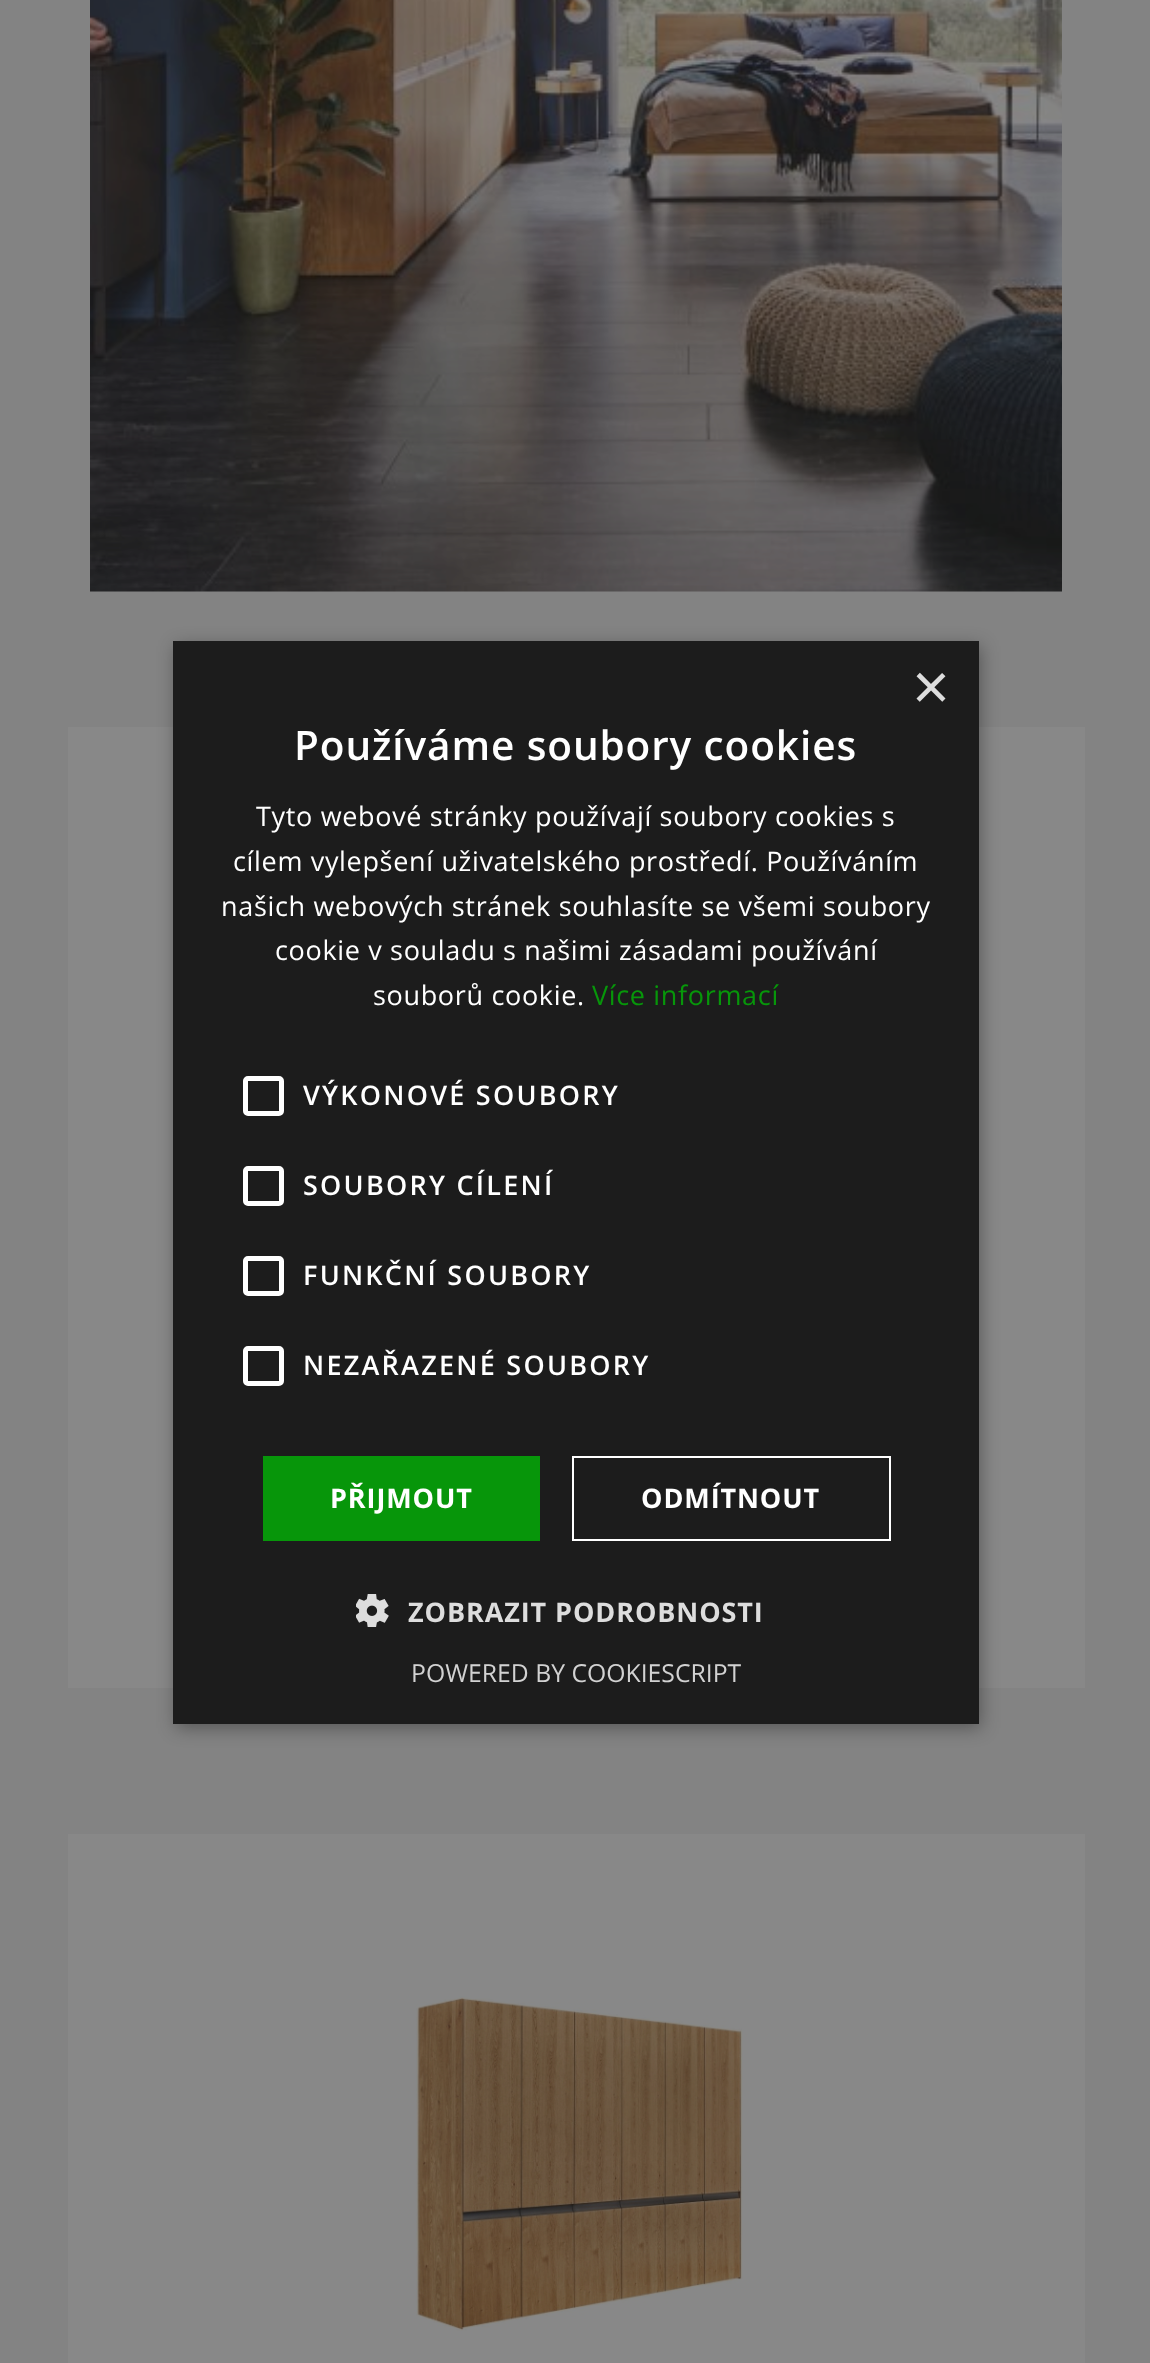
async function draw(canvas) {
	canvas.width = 1150;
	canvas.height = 2363;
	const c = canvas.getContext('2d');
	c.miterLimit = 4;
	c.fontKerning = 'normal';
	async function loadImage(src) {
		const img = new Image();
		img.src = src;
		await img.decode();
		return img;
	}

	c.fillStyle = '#838383';
	c.fillRect(0, 0, 1150, 2363);
	c.drawImage(await loadImage('img1.png'), 90, 0, 972, 592);
	c.fillStyle = '#888';
	c.fillRect(68, 727, 1017, 961);
	c.fillRect(68, 1834, 1017, 529);
	c.drawImage(await loadImage('img2.png'), 416, 1996, 327, 335);
	c.fillStyle = '#00000059';
	c.filter = 'blur(9px)';
	c.beginPath();
	c.rect(176, 646, 805, 1082);
	c.fill();
	c.filter = 'none';
	c.fillStyle = '#1c1c1c';
	c.fillRect(173, 641, 806, 1083);
	c.font = '65px Liberation Sans';
	c.fillStyle = '#ddd';
	c.fillText('×', 912, 709);
	c.letterSpacing = '0.9px';
	c.font = '600 40.5px Open Sans';
	c.fillStyle = '#fff';
	c.fillText('Používáme soubory cookies', 294, 760);
	c.letterSpacing = '0.67px';
	c.font = '27px Open Sans';
	for (const [text, x, y] of [
		['Tyto webové stránky používají soubory cookies s', 256, 826],
		['cílem vylepšení uživatelského prostředí. Používáním', 233, 871],
		['našich webových stránek souhlasíte se všemi soubory', 221, 916],
		['cookie v souladu s našimi zásadami používání', 275, 960],
		['souborů cookie.', 373, 1005],
	]) {
		c.fillText(text, x, y);
	}
	c.fillStyle = '#07960a';
	c.fillText('Více informací', 592, 1005);
	c.beginPath();
	c.roundRect(245.5, 1078.5, 36, 35, 2.5);
	c.strokeStyle = '#fff';
	c.lineWidth = 5;
	c.stroke();
	c.letterSpacing = '2.25px';
	c.font = '600 27px Open Sans';
	c.fillStyle = '#fff';
	c.fillText('VÝKONOVÉ SOUBORY', 303, 1105);
	c.beginPath();
	c.roundRect(245.5, 1168.5, 36, 35, 2.5);
	c.stroke();
	c.fillText('SOUBORY CÍLENÍ', 303, 1195);
	c.beginPath();
	c.roundRect(245.5, 1258.5, 36, 35, 2.5);
	c.stroke();
	c.fillText('FUNKČNÍ SOUBORY', 303, 1285);
	c.beginPath();
	c.roundRect(245.5, 1348.5, 36, 35, 2.5);
	c.stroke();
	c.fillText('NEZAŘAZENÉ SOUBORY', 303, 1375);
	c.fillStyle = '#07960a';
	c.fillRect(263, 1456, 277, 85);
	c.letterSpacing = '0.9px';
	c.font = 'bold 27px Open Sans';
	c.fillStyle = '#fff';
	c.fillText('PŘIJMOUT', 330, 1508);
	c.lineWidth = 2;
	c.strokeRect(573, 1457, 317, 83);
	c.fillText('ODMÍTNOUT', 641, 1508);
	c.drawImage(await loadImage('img3.png'), 356, 1594, 33, 33);
	c.fillStyle = '#ddd';
	c.fillText('ZOBRAZIT PODROBNOSTI', 408, 1622);
	c.letterSpacing = '0px';
	c.font = '24.75px Open Sans';
	c.fillStyle = '#d2d2d2';
	c.fillText('POWERED BY COOKIESCRIPT', 411, 1682);
}

draw(document.querySelector('canvas'));
